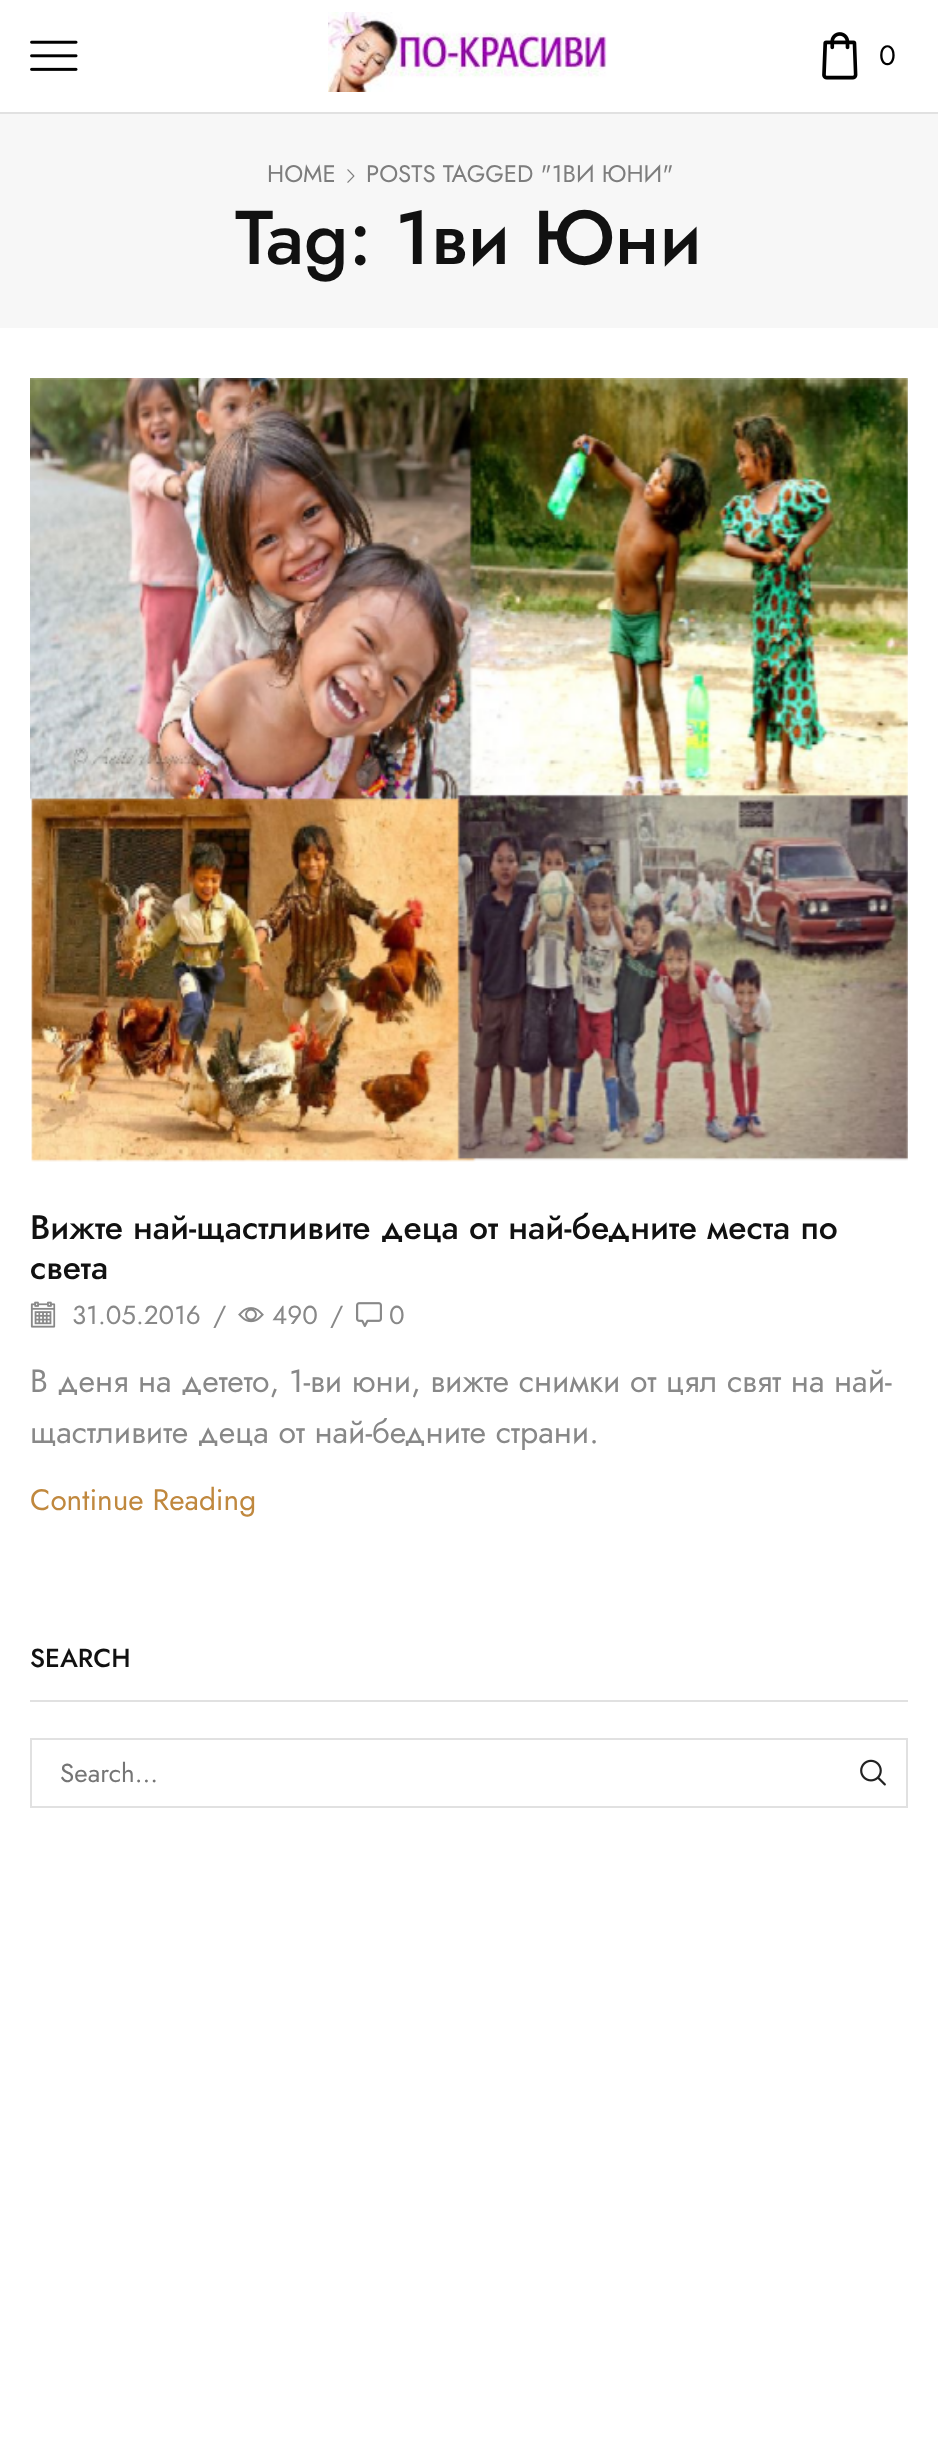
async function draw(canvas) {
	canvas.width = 938;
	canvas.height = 2444;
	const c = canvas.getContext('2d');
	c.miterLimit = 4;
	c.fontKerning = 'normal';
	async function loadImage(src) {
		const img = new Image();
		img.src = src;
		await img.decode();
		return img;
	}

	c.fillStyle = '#fff';
	c.fillRect(0, 0, 938, 2444);
	c.fillStyle = '#e1e1e1';
	c.fillRect(0, 112, 938, 2);
	c.drawImage(await loadImage('img1.png'), 30, 40, 48, 31);
	c.drawImage(await loadImage('img2.png'), 328, 12, 279, 80);
	c.drawImage(await loadImage('img3.png'), 822, 32, 36, 48);
	c.font = '28px Jost';
	c.fillStyle = '#000';
	c.fillText('0', 879, 65);
	c.fillStyle = '#f7f7f7';
	c.fillRect(0, 114, 938, 214);
	c.font = '24px Jost';
	c.fillStyle = '#7d7d7d';
	c.fillText('HOME', 267, 182);
	c.drawImage(await loadImage('img4.png'), 347, 169, 8, 14);
	c.fillText('POSTS TAGGED "1ВИ ЮНИ"', 366, 182);
	c.font = '500 76px Jost';
	c.fillStyle = '#111';
	c.fillText('Tag: 1ви Юни', 235, 264);
	c.drawImage(await loadImage('img5.png'), 30, 378, 878, 784);
	c.font = '500 33.8px Jost';
	c.fillText('Вижте най-щастливите деца от най-бедните места по', 30, 1239);
	c.fillText('света', 30, 1279);
	c.drawImage(await loadImage('img6.png'), 30, 1301, 26, 27);
	c.font = '26px Jost';
	c.fillStyle = '#888';
	c.fillText('31.05.2016', 72, 1324);
	c.fillText('/', 213, 1324);
	c.drawImage(await loadImage('img7.png'), 238, 1307, 26, 16);
	c.fillText('490', 272, 1324);
	c.fillText('/', 330, 1324);
	c.drawImage(await loadImage('img8.png'), 356, 1302, 26, 26);
	c.fillText('0', 389, 1324);
	c.font = '32px Jost';
	c.fillText('В деня на детето, 1-ви юни, вижте снимки от цял свят на най-', 30, 1392);
	c.fillText('щастливите деца от най-бедните страни.', 30, 1443);
	c.font = '29.75px Jost';
	c.fillStyle = '#c0883e';
	c.fillText('Continue Reading', 30, 1510);
	c.fillStyle = '#e1e1e1';
	c.fillRect(30, 1700, 878, 2);
	c.font = '500 26px Jost';
	c.fillStyle = '#111';
	c.fillText('SEARCH', 30, 1667);
	c.strokeStyle = '#e1e1e1';
	c.lineWidth = 2;
	c.strokeRect(31, 1739, 876, 68);
	c.font = '26px Jost';
	c.fillStyle = '#757575';
	c.fillText('Search...', 60, 1782);
	c.drawImage(await loadImage('img9.png'), 860, 1759, 26, 27);
}

draw(document.querySelector('canvas'));
